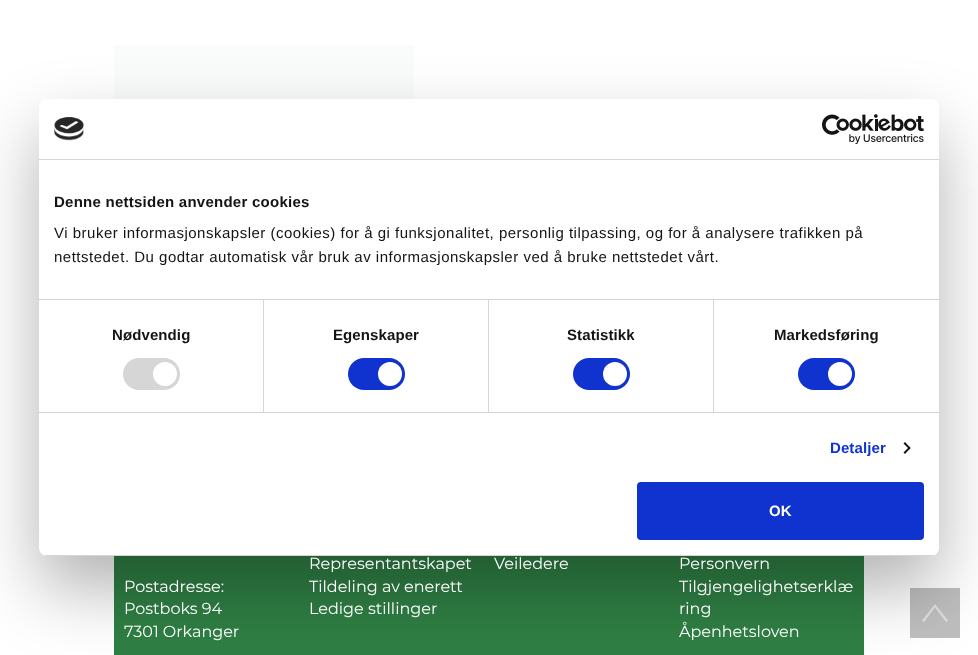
async function draw(canvas) {
	canvas.width = 978;
	canvas.height = 655;
	const c = canvas.getContext('2d');
	c.miterLimit = 4;
	c.fontKerning = 'normal';
	async function loadImage(src) {
		const img = new Image();
		img.src = src;
		await img.decode();
		return img;
	}

	c.fillStyle = '#fff';
	c.fillRect(0, 0, 978, 655);
	for (const [x, y, w, h, color] of [
		[114, 45, 300, 54, '#fafbfb'],
		[114, 556, 750, 99, '#2f7f44'],
		[910, 588, 50, 50, '#bfbfbf'],
	]) {
		c.fillStyle = color;
		c.fillRect(x, y, w, h);
	}
	c.fillStyle = '#dfdfdf';
	c.beginPath();
	c.moveTo(935, 604);
	c.lineTo(948, 620.5);
	c.lineTo(946, 622);
	c.lineTo(935, 607.5);
	c.lineTo(924, 622);
	c.lineTo(922, 620.5);
	c.closePath();
	c.fill();
	c.fillStyle = '#0000004d';
	c.filter = 'blur(34px)';
	c.beginPath();
	c.roundRect(39, 131, 900, 457, 8);
	c.fill();
	c.filter = 'none';
	c.fillStyle = '#fff';
	c.beginPath();
	c.roundRect(39, 99, 900, 457, 8);
	c.fill();
	c.fillStyle = '#d6d6d6';
	c.fillRect(39, 159, 900, 1);
	c.drawImage(await loadImage('img1.png'), 54, 117, 30, 24);
	c.drawImage(await loadImage('img2.png'), 822, 114, 102, 30);
	c.fillRect(39, 299, 900, 1);
	c.letterSpacing = '0.25px';
	c.font = 'bold 15px Liberation Sans';
	c.fillStyle = '#141414';
	c.fillText('Denne nettsiden anvender cookies', 54, 207);
	c.letterSpacing = '0.5px';
	c.font = '15px Liberation Sans';
	c.fillText('Vi bruker informasjonskapsler (cookies) for å gi funksjonalitet, personlig tilpassing, og for å analysere trafikken på', 54, 238);
	c.fillText('nettstedet. Du godtar automatisk vår bruk av informasjonskapsler ved å bruke nettstedet vårt.', 54, 262);
	c.fillStyle = '#d6d6d6';
	c.fillRect(39, 412, 900, 1);
	c.fillRect(263, 300, 1, 112);
	c.letterSpacing = '0.1px';
	c.font = 'bold 15px Liberation Sans';
	c.fillStyle = '#141414';
	c.fillText('Nødvendig', 112, 340);
	c.fillStyle = '#d6d6d6';
	c.beginPath();
	c.roundRect(123, 358, 57, 32, 16);
	c.fill();
	c.fillStyle = '#fff';
	c.beginPath();
	c.arc(165, 374, 12, 0, 2 * Math.PI);
	c.fill();
	c.fillStyle = '#d6d6d6';
	c.fillRect(488, 300, 1, 112);
	c.fillStyle = '#141414';
	c.fillText('Egenskaper', 333, 340);
	c.fillStyle = '#1032cf';
	c.beginPath();
	c.roundRect(348, 358, 57, 32, 16);
	c.fill();
	c.fillStyle = '#fff';
	c.beginPath();
	c.arc(390, 374, 12, 0, 2 * Math.PI);
	c.fill();
	c.fillStyle = '#d6d6d6';
	c.fillRect(713, 300, 1, 112);
	c.fillStyle = '#141414';
	c.fillText('Statistikk', 567, 340);
	c.fillStyle = '#1032cf';
	c.beginPath();
	c.roundRect(573, 358, 57, 32, 16);
	c.fill();
	c.fillStyle = '#fff';
	c.beginPath();
	c.arc(615, 374, 12, 0, 2 * Math.PI);
	c.fill();
	c.fillStyle = '#141414';
	c.fillText('Markedsføring', 774, 340);
	c.fillStyle = '#1032cf';
	c.beginPath();
	c.roundRect(798, 358, 57, 32, 16);
	c.fill();
	c.fillStyle = '#fff';
	c.beginPath();
	c.arc(840, 374, 12, 0, 2 * Math.PI);
	c.fill();
	c.fillStyle = '#1032cf';
	c.fillText('Detaljer', 830, 453);
	c.fillStyle = '#141414';
	c.beginPath();
	c.moveTo(905, 442);
	c.lineTo(910.5, 448);
	c.lineTo(909.5, 449.5);
	c.lineTo(903.5, 443.5);
	c.closePath();
	c.fill();
	c.beginPath();
	c.moveTo(909.5, 446.5);
	c.lineTo(910.5, 448);
	c.lineTo(905, 454);
	c.lineTo(903.5, 452.5);
	c.closePath();
	c.fill();
	c.save();
	c.beginPath();
	c.roundRect(39, 99, 900, 457, 8);
	c.clip();
	c.fillStyle = '#d6d6d6';
	c.fillRect(39, 555, 900, 1);
	c.restore();
	c.fillStyle = '#1032cf';
	c.beginPath();
	c.roundRect(638, 483, 285, 56, 3);
	c.fill();
	c.strokeStyle = '#1032cf';
	c.lineWidth = 2;
	c.stroke();
	c.letterSpacing = '0px';
	c.fillStyle = '#fff';
	c.fillText('OK', 769, 516);
	c.font = '16px Montserrat';
	for (const [text, x, y] of [
		['Postadresse:', 124, 592],
		['Postboks 94', 124, 614],
		['7301 Orkanger', 124, 637],
		['Representantskapet', 309, 569],
		['Tildeling av enerett', 309, 592],
		['Ledige stillinger', 309, 614],
		['Veiledere', 494, 569],
		['Personvern', 679, 569],
		['Tilgjengelighetserklæ', 679, 592],
		['ring', 679, 614],
		['Åpenhetsloven', 679, 637],
	]) {
		c.fillText(text, x, y);
	}
}

draw(document.querySelector('canvas'));
